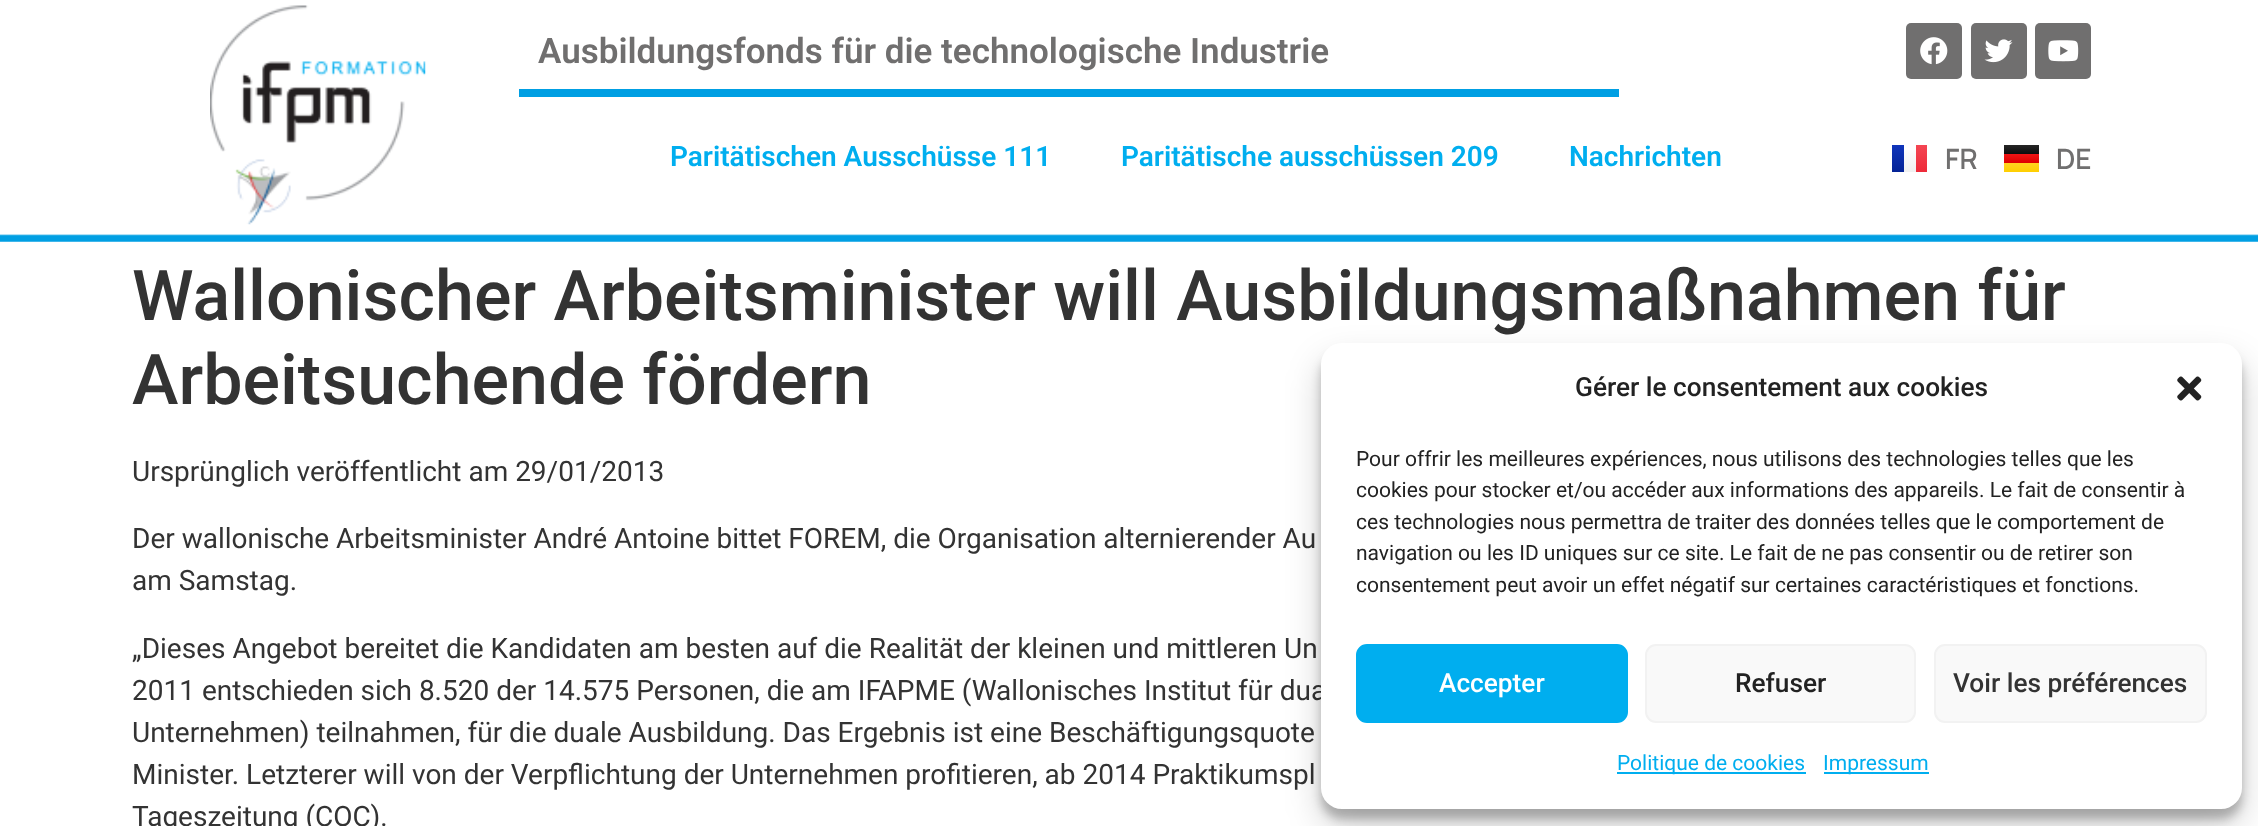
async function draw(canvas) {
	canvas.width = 2258;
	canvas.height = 826;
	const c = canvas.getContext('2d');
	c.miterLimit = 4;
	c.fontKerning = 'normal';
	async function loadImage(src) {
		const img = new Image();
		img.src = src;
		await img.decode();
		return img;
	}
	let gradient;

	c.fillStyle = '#fff';
	c.fillRect(0, 0, 2258, 826);
	c.drawImage(await loadImage('img1.png'), 0, 234, 2258, 8);
	c.drawImage(await loadImage('img2.png'), 210, 5, 216, 220);
	c.fillStyle = '#009fe3';
	c.fillRect(519, 89, 1100, 8);
	c.font = '600 35px Roboto';
	c.fillStyle = '#706f6f';
	c.fillText('Ausbildungsfonds für die technologische Industrie', 538, 63);
	c.beginPath();
	c.roundRect(1906, 23, 56, 56, 5);
	c.fill();
	c.drawImage(await loadImage('img3.png'), 1920, 37, 28, 28);
	c.beginPath();
	c.roundRect(1971, 23, 56, 56, 5);
	c.fill();
	c.drawImage(await loadImage('img4.png'), 1984, 39, 29, 24);
	c.beginPath();
	c.roundRect(2035, 23, 56, 56, 5);
	c.fill();
	c.drawImage(await loadImage('img5.png'), 2048, 40, 31, 22);
	c.font = '600 28px Roboto';
	c.fillStyle = '#00aeef';
	for (const [text, x, y] of [
		['Paritätischen Ausschüsse 111', 670, 166],
		['Paritätische ausschüssen 209', 1121, 166],
		['Nachrichten', 1569, 166],
	]) {
		c.fillText(text, x, y);
	}
	gradient = c.createLinearGradient(1898, 145, 1898, 172);
	gradient.addColorStop(0, '#1035bb');
	gradient.addColorStop(1, '#042396');
	c.fillStyle = gradient;
	c.fillRect(1892, 145, 12, 27);
	gradient = c.createLinearGradient(1910, 145, 1910, 172);
	gradient.addColorStop(0, '#fff');
	gradient.addColorStop(1, '#f0f0f0');
	c.fillStyle = gradient;
	c.fillRect(1904, 150, 12, 22);
	gradient = c.createLinearGradient(1919, 145, 1919, 172);
	gradient.addColorStop(0, '#f44653');
	gradient.addColorStop(1, '#ee2a39');
	c.fillStyle = gradient;
	c.fillRect(1916, 145, 11, 27);
	c.font = '600 28px Manrope';
	c.fillStyle = '#706f6f';
	c.fillText('FR', 1945, 169);
	gradient = c.createLinearGradient(2022, 145, 2022, 154);
	gradient.addColorStop(0, '#262626');
	gradient.addColorStop(1, '#0d0d0d');
	c.fillStyle = gradient;
	c.fillRect(2004, 145, 35, 9);
	gradient = c.createLinearGradient(2022, 154, 2022, 163);
	gradient.addColorStop(0, '#f01515');
	gradient.addColorStop(1, '#de0000');
	c.fillStyle = gradient;
	c.fillRect(2004, 154, 35, 9);
	gradient = c.createLinearGradient(2022, 163, 2022, 172);
	gradient.addColorStop(0, '#ffd521');
	gradient.addColorStop(1, '#ffcf00');
	c.fillStyle = gradient;
	c.fillRect(2004, 163, 35, 9);
	c.fillStyle = '#706f6f';
	c.fillText('DE', 2056, 169);
	c.font = '500 70px Roboto';
	c.fillStyle = '#333';
	c.fillText('Wallonischer Arbeitsminister will Ausbildungsmaßnahmen für', 132, 320);
	c.fillText('Arbeitsuchende fördern', 132, 404);
	c.font = '28px Roboto';
	for (const [text, x, y] of [
		['Ursprünglich veröffentlicht am 29/01/2013', 132, 481],
		['Der wallonische Arbeitsminister André Antoine bittet FOREM, die Organisation alternierender Au', 132, 548],
		['am Samstag.', 132, 590],
		['„Dieses Angebot bereitet die Kandidaten am besten auf die Realität der kleinen und mittleren Un', 132, 658],
		['2011 entschieden sich 8.520 der 14.575 Personen, die am IFAPME (Wallonisches Institut für dua', 132, 700],
		['Unternehmen) teilnahmen, für die duale Ausbildung. Das Ergebnis ist eine Beschäftigungsquote', 132, 742],
		['Minister. Letzterer will von der Verpflichtung der Unternehmen profitieren, ab 2014 Praktikumspl', 132, 784],
		['Tageszeitung (COC).', 132, 826],
	]) {
		c.fillText(text, x, y);
	}
	c.fillStyle = '#0000003b';
	c.filter = 'blur(5px)';
	c.beginPath();
	c.roundRect(1321, 354, 921, 465, 21);
	c.fill();
	c.filter = 'none';
	c.fillStyle = '#00000030';
	c.filter = 'blur(17.5px)';
	c.beginPath();
	c.roundRect(1321, 361, 921, 465, 21);
	c.fill();
	c.filter = 'none';
	c.fillStyle = '#fff';
	c.beginPath();
	c.roundRect(1321, 343, 921, 466, 21);
	c.fill();
	c.font = '500 26.25px Roboto';
	c.fillStyle = '#222';
	c.fillText('Gérer le consentement aux cookies', 1575, 396);
	c.drawImage(await loadImage('img6.png'), 2177, 376, 25, 25);
	c.font = '21px Roboto';
	for (const [text, x, y] of [
		['Pour offrir les meilleures expériences, nous utilisons des technologies telles que les', 1356, 466],
		['cookies pour stocker et/ou accéder aux informations des appareils. Le fait de consentir à', 1356, 497],
		['ces technologies nous permettra de traiter des données telles que le comportement de', 1356, 529],
		['navigation ou les ID uniques sur ce site. Le fait de ne pas consentir ou de retirer son', 1356, 560],
		['consentement peut avoir un effet négatif sur certaines caractéristiques et fonctions.', 1356, 592],
	]) {
		c.fillText(text, x, y);
	}
	c.fillStyle = '#00aeef';
	c.beginPath();
	c.roundRect(1357, 645, 270, 77, 10);
	c.fill();
	c.strokeStyle = '#00aeef';
	c.lineWidth = 2;
	c.stroke();
	c.font = '500 26.25px Roboto';
	c.fillStyle = '#fff';
	c.fillText('Accepter', 1439, 692);
	c.fillStyle = '#f9f9f9';
	c.beginPath();
	c.roundRect(1646, 645, 269, 77, 10);
	c.fill();
	c.strokeStyle = '#f2f2f2';
	c.stroke();
	c.fillStyle = '#222';
	c.fillText('Refuser', 1735, 692);
	c.fillStyle = '#f9f9f9';
	c.beginPath();
	c.roundRect(1935, 645, 271, 77, 10);
	c.fill();
	c.stroke();
	c.fillStyle = '#333';
	c.fillText('Voir les préférences', 1953, 692);
	c.fillStyle = '#00aeef';
	c.fillRect(1617, 772, 189, 2);
	c.font = '21px Roboto';
	c.fillText('Politique de cookies', 1617, 770);
	c.fillRect(1824, 772, 105, 2);
	c.fillText('Impressum', 1823, 770);
}

draw(document.querySelector('canvas'));
